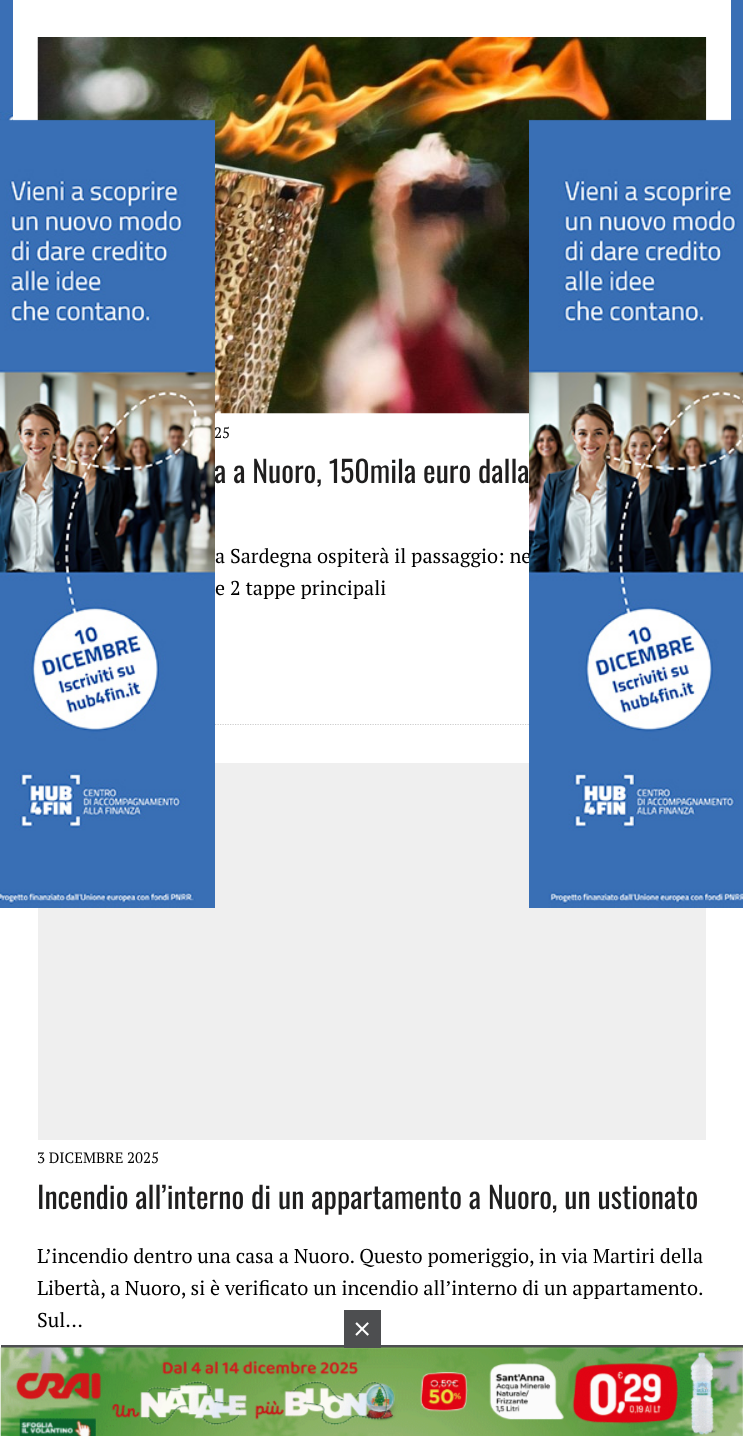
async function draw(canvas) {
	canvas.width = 743;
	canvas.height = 1436;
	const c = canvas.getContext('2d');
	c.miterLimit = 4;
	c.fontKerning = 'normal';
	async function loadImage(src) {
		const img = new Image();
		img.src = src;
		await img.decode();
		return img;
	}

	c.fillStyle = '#fff';
	c.fillRect(0, 0, 743, 1436);
	c.drawImage(await loadImage('img1.png'), 0, 0, 743, 121);
	c.fillRect(13, 0, 718, 121);
	c.drawImage(await loadImage('img4.png'), 37, 37, 670, 377);
	c.font = '15px PT Serif';
	c.fillStyle = '#000';
	c.fillText('25', 214, 438);
	c.font = '30px Oswald';
	c.fillStyle = '#1f1e1e';
	c.fillText('a a Nuoro, 150mila euro dalla', 214, 483);
	c.save();
	c.beginPath();
	c.rect(38, 38, 668, 687);
	c.clip();
	c.beginPath();
	c.moveTo(37.5, 724.5);
	c.lineTo(706, 724.5);
	c.strokeStyle = '#cdcdcd';
	c.lineWidth = 1.2;
	c.setLineDash([1.25, 1.25]);
	c.stroke();
	c.restore();
	c.fillStyle = '#efefef';
	c.fillRect(38, 763, 668, 377);
	c.drawImage(await loadImage('img2.png'), 0, 119, 215, 789);
	c.font = '20px PT Serif';
	c.fillStyle = '#000';
	c.fillText('a Sardegna ospiterà il passaggio: ne', 215, 563);
	c.drawImage(await loadImage('img3.png'), 529, 119, 214, 789);
	c.fillText('e 2 tappe principali', 215, 595);
	c.font = '15px PT Serif';
	c.fillText('3 DICEMBRE 2025', 37, 1163);
	c.font = '30px Oswald';
	c.fillStyle = '#1f1e1e';
	c.fillText('Incendio all’interno di un appartamento a Nuoro, un ustionato', 37, 1209);
	c.font = '20px PT Serif';
	c.fillStyle = '#000';
	for (const [text, x, y] of [
		['L’incendio dentro una casa a Nuoro. Questo pomeriggio, in via Martiri della', 37, 1263],
		['Libertà, a Nuoro, si è verificato un incendio all’interno di un appartamento.', 37, 1295],
		['Sul…', 37, 1327],
	]) {
		c.fillText(text, x, y);
	}
	c.fillStyle = '#4d4e50';
	c.fillRect(1, 1345, 742, 3);
	c.drawImage(await loadImage('img5.png'), 0, 1347, 743, 89);
	c.fillRect(344, 1310, 37, 38);
	c.font = '38px PT Serif';
	c.fillStyle = '#fff';
	c.fillText('×', 352, 1342);
}

draw(document.querySelector('canvas'));
